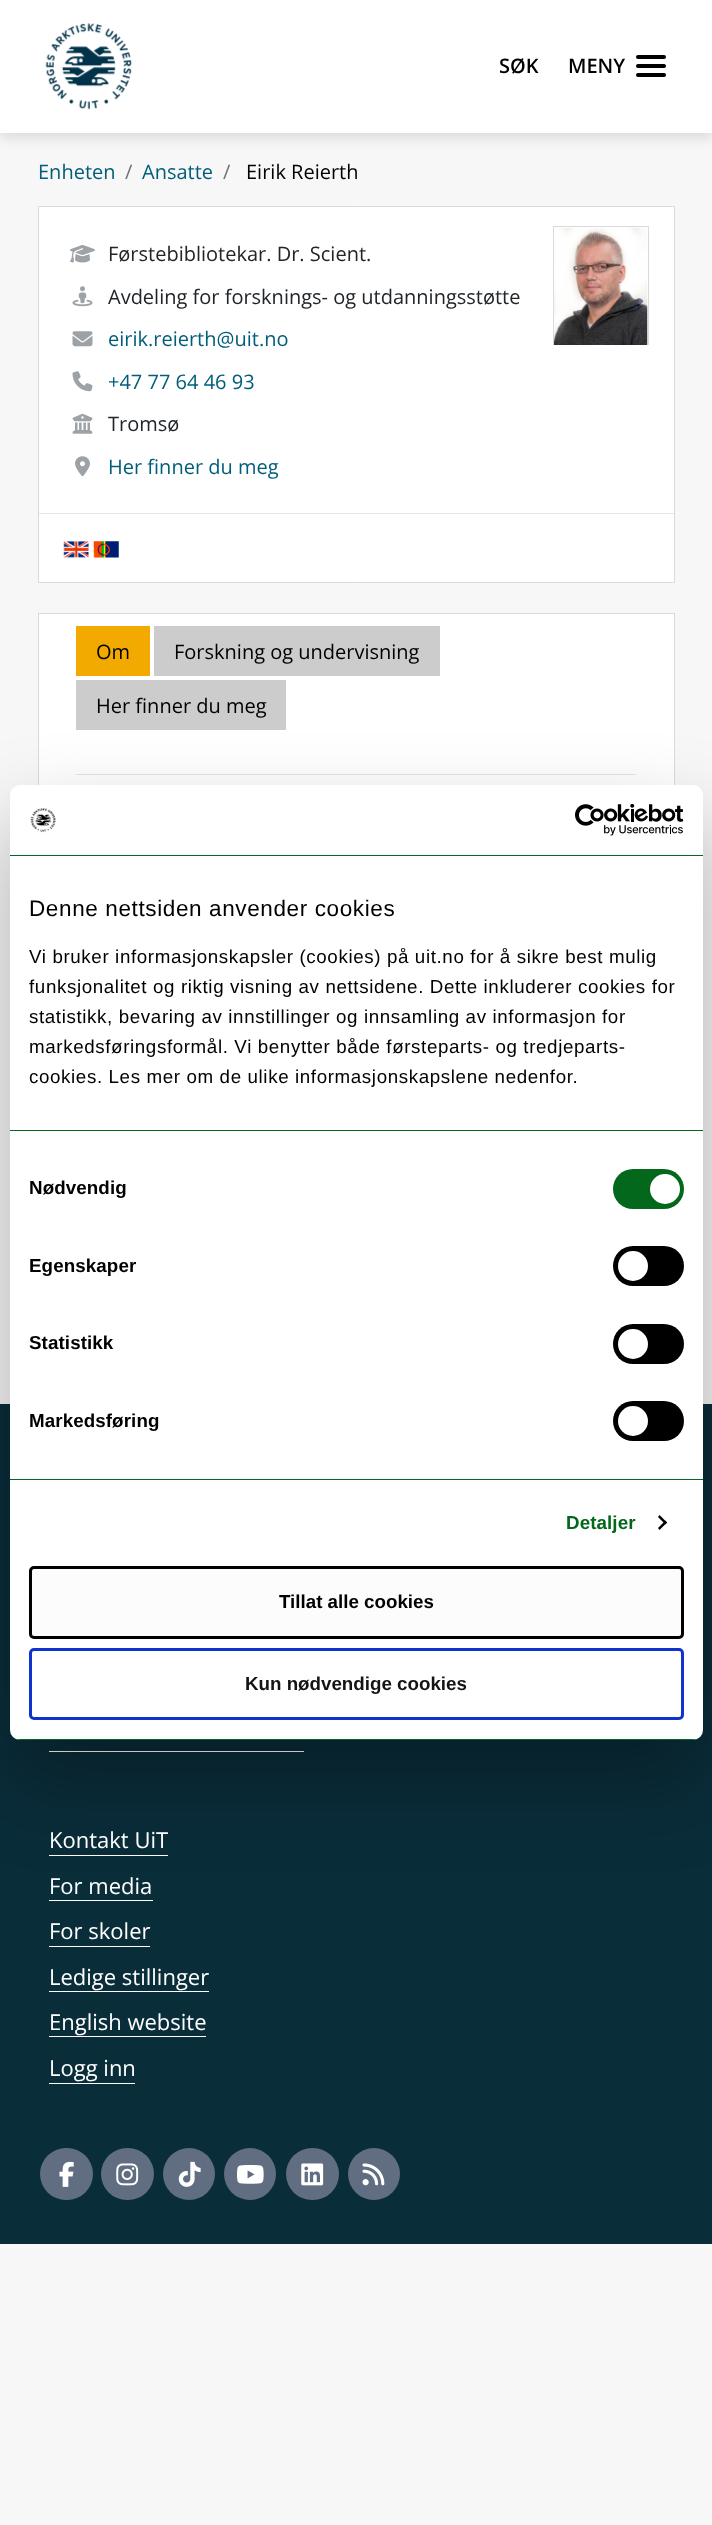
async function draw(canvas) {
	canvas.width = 712;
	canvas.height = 2525;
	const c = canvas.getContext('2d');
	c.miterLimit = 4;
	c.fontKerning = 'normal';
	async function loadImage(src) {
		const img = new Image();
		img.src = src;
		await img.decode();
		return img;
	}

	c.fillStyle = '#f7f7f7';
	c.fillRect(0, 0, 712, 2525);
	c.fillStyle = '#0000001a';
	c.filter = 'blur(6px)';
	c.beginPath();
	c.rect(0, 6, 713, 133);
	c.fill();
	c.filter = 'none';
	c.fillStyle = '#fff';
	c.fillRect(0, 0, 712, 133);
	c.drawImage(await loadImage('img1.png'), 45, 23, 87, 87);
	c.font = '600 20px Open Sans';
	c.fillStyle = '#000';
	c.fillText('SØK', 499, 73);
	c.beginPath();
	c.roundRect(636, 55, 30, 4, 2);
	c.fill();
	c.fillText('MENY', 568, 73);
	c.beginPath();
	c.roundRect(636, 64, 30, 4, 2);
	c.fill();
	c.beginPath();
	c.roundRect(636, 73, 30, 4, 2);
	c.fill();
	c.font = '20px Open Sans';
	c.fillStyle = '#005e7a';
	c.fillText('Enheten', 38, 179);
	c.fillStyle = '#6c757d';
	c.fillText('/', 125, 179);
	c.fillStyle = '#005e7a';
	c.fillText('Ansatte', 142, 179);
	c.fillStyle = '#6c757d';
	c.fillText('/', 223, 179);
	c.fillStyle = '#000';
	c.fillText('Eirik Reierth', 246, 179);
	c.fillStyle = '#fff';
	c.beginPath();
	c.rect(38.5, 206.5, 636, 376);
	c.fill();
	c.strokeStyle = '#dadada';
	c.stroke();
	c.fillStyle = '#e6e7ed';
	c.fillRect(39, 513, 635, 1);
	c.drawImage(await loadImage('img2.png'), 70, 245, 25, 18);
	c.fillStyle = '#212529';
	c.fillText('Førstebibliotekar. Dr. Scient.', 108, 261);
	for (const [x, y, w, h, color] of [
		[553, 226, 96, 1, '#dadada'],
		[648, 226, 1, 119, '#dadada'],
		[553, 226, 1, 119, '#dadada'],
	]) {
		c.fillStyle = color;
		c.fillRect(x, y, w, h);
	}
	c.drawImage(await loadImage('img3.png'), 553, 227, 95, 118);
	c.drawImage(await loadImage('img4.png'), 72, 286, 21, 21);
	c.fillStyle = '#212529';
	c.fillText('Avdeling for forsknings- og utdanningsstøtte', 108, 304);
	c.drawImage(await loadImage('img5.png'), 72, 331, 21, 16);
	c.fillStyle = '#005e7a';
	c.fillText('eirik.reierth@uit.no', 108, 346);
	c.drawImage(await loadImage('img6.png'), 72, 371, 21, 21);
	c.fillText('+47 77 64 46 93', 108, 389);
	c.drawImage(await loadImage('img7.png'), 72, 413, 21, 21);
	c.fillStyle = '#212529';
	c.fillText('Tromsø', 108, 431);
	c.drawImage(await loadImage('img8.png'), 75, 456, 15, 21);
	c.fillStyle = '#005e7a';
	c.fillText('Her finner du meg', 108, 474);
	c.drawImage(await loadImage('img9.png'), 63, 541, 26, 17);
	c.drawImage(await loadImage('img10.png'), 93, 541, 26, 17);
	c.fillStyle = '#fff';
	c.fillRect(39, 614, 635, 171);
	c.strokeRect(38.5, 613.5, 636, 699);
	c.fillStyle = '#f2a900';
	c.fillRect(76, 626, 74, 50);
	c.fillStyle = '#000';
	c.fillText('Om', 96, 659);
	c.fillStyle = '#ccc';
	c.fillRect(154, 626, 286, 50);
	c.fillStyle = '#000';
	c.fillText('Forskning og undervisning', 174, 659);
	c.fillStyle = '#ccc';
	c.fillRect(76, 680, 210, 50);
	c.fillStyle = '#000';
	c.fillText('Her finner du meg', 96, 713);
	for (const [x, y, w, h, color] of [
		[76, 774, 560, 1, '#e6e6e6'],
		[0, 1404, 712, 840, '#0a2d3a'],
		[49, 1751, 255, 1, '#fff'],
		[49, 1855, 119, 1, '#fff'],
		[49, 1900, 104, 1, '#fff'],
	]) {
		c.fillStyle = color;
		c.fillRect(x, y, w, h);
	}
	c.fillStyle = '#0000004d';
	c.filter = 'blur(42.5px)';
	c.beginPath();
	c.roundRect(10, 825, 693, 955, 10);
	c.fill();
	c.filter = 'none';
	c.fillStyle = '#fff';
	c.beginPath();
	c.roundRect(10, 785, 693, 955, 10);
	c.fill();
	c.fillStyle = '#03681b';
	c.fillRect(10, 855, 693, 1);
	c.drawImage(await loadImage('img11.png'), 30, 808, 26, 25);
	c.drawImage(await loadImage('img12.png'), 575, 804, 109, 32);
	c.fillRect(10, 1130, 693, 1);
	c.letterSpacing = '0.62px';
	c.font = '22.5px Liberation Sans';
	c.fillStyle = '#000';
	c.fillText('Denne nettsiden anvender cookies', 29, 916);
	c.font = '18.75px Liberation Sans';
	for (const [text, x, y] of [
		['Vi bruker informasjonskapsler (cookies) på uit.no for å sikre best mulig', 29, 963],
		['funksjonalitet og riktig visning av nettsidene. Dette inkluderer cookies for', 29, 993],
		['statistikk, bevaring av innstillinger og innsamling av informasjon for', 29, 1023],
		['markedsføringsformål. Vi benytter både førsteparts- og tredjeparts-', 29, 1053],
		['cookies. Les mer om de ulike informasjonskapslene nedenfor.', 29, 1083],
	]) {
		c.fillText(text, x, y);
	}
	c.fillStyle = '#03681b';
	c.fillRect(10, 1479, 693, 1);
	c.letterSpacing = '0.1px';
	c.font = 'bold 18.75px Liberation Sans';
	c.fillStyle = '#000';
	c.fillText('Nødvendig', 29, 1194);
	c.fillStyle = '#03681b';
	c.beginPath();
	c.roundRect(613, 1169, 71, 40, 20);
	c.fill();
	c.fillStyle = '#fff';
	c.beginPath();
	c.arc(665, 1189, 15, 0, 2 * Math.PI);
	c.fill();
	c.fillStyle = '#000';
	c.fillText('Egenskaper', 29, 1272);
	c.beginPath();
	c.roundRect(613, 1246, 71, 40, 20);
	c.fill();
	c.fillStyle = '#fff';
	c.beginPath();
	c.arc(633, 1266, 15, 0, 2 * Math.PI);
	c.fill();
	c.fillStyle = '#000';
	c.fillText('Statistikk', 29, 1349);
	c.beginPath();
	c.roundRect(613, 1324, 71, 40, 20);
	c.fill();
	c.fillStyle = '#fff';
	c.beginPath();
	c.arc(633, 1344, 15, 0, 2 * Math.PI);
	c.fill();
	c.fillStyle = '#000';
	c.fillText('Markedsføring', 29, 1427);
	c.beginPath();
	c.roundRect(613, 1401, 71, 40, 20);
	c.fill();
	c.fillStyle = '#fff';
	c.beginPath();
	c.arc(633, 1421, 15, 0, 2 * Math.PI);
	c.fill();
	c.fillStyle = '#03681b';
	c.fillText('Detaljer', 566, 1529);
	c.fillStyle = '#000';
	c.beginPath();
	c.moveTo(659.5, 1515);
	c.lineTo(667, 1522.5);
	c.lineTo(665.5, 1524.5);
	c.lineTo(658, 1517);
	c.closePath();
	c.fill();
	c.beginPath();
	c.moveTo(665.5, 1520.5);
	c.lineTo(667, 1522.5);
	c.lineTo(659.5, 1530);
	c.lineTo(658, 1528);
	c.closePath();
	c.fill();
	c.save();
	c.beginPath();
	c.roundRect(10, 785, 693, 955, 10);
	c.clip();
	c.fillStyle = '#03681b';
	c.fillRect(10, 1739, 693, 1);
	c.restore();
	c.fillStyle = '#fcfcfc';
	c.beginPath();
	c.roundRect(30.5, 1567.5, 652, 70, 3.5);
	c.fill();
	c.strokeStyle = '#000';
	c.lineWidth = 3;
	c.stroke();
	c.letterSpacing = '0px';
	c.fillStyle = '#000';
	c.fillText('Tillat alle cookies', 279, 1608);
	c.beginPath();
	c.roundRect(30.5, 1649.5, 652, 69, 3.5);
	c.strokeStyle = '#1032cf';
	c.stroke();
	c.fillStyle = '#141414';
	c.fillText('Kun nødvendige cookies', 245, 1690);
	c.font = '22px Open Sans';
	c.fillStyle = '#fff';
	for (const [text, x, y] of [
		['Kontakt UiT', 49, 1848],
		['For media', 49, 1894],
		['For skoler', 49, 1939],
	]) {
		c.fillText(text, x, y);
	}
	c.fillRect(49, 1946, 101, 1);
	c.fillText('Ledige stillinger', 49, 1985);
	c.fillRect(49, 1991, 160, 1);
	c.fillText('English website', 49, 2030);
	c.fillRect(49, 2036, 157, 1);
	c.fillText('Logg inn', 49, 2076);
	c.fillRect(49, 2083, 86, 1);
	c.fillStyle = '#616e81';
	c.beginPath();
	c.roundRect(40, 2148, 53, 52, 26);
	c.fill();
	c.drawImage(await loadImage('img13.png'), 59, 2161, 15, 26);
	c.beginPath();
	c.roundRect(101, 2148, 53, 52, 26);
	c.fill();
	c.drawImage(await loadImage('img14.png'), 116, 2163, 23, 23);
	c.beginPath();
	c.arc(189, 2174, 26, 0, 2 * Math.PI);
	c.fill();
	c.drawImage(await loadImage('img15.png'), 178, 2161, 23, 26);
	c.beginPath();
	c.arc(250, 2174, 26, 0, 2 * Math.PI);
	c.fill();
	c.drawImage(await loadImage('img16.png'), 237, 2165, 27, 19);
	c.beginPath();
	c.roundRect(286, 2148, 53, 52, 26);
	c.fill();
	c.drawImage(await loadImage('img17.png'), 301, 2163, 23, 23);
	c.beginPath();
	c.arc(374, 2174, 26, 0, 2 * Math.PI);
	c.fill();
	c.drawImage(await loadImage('img18.png'), 362, 2163, 23, 23);
}

draw(document.querySelector('canvas'));
